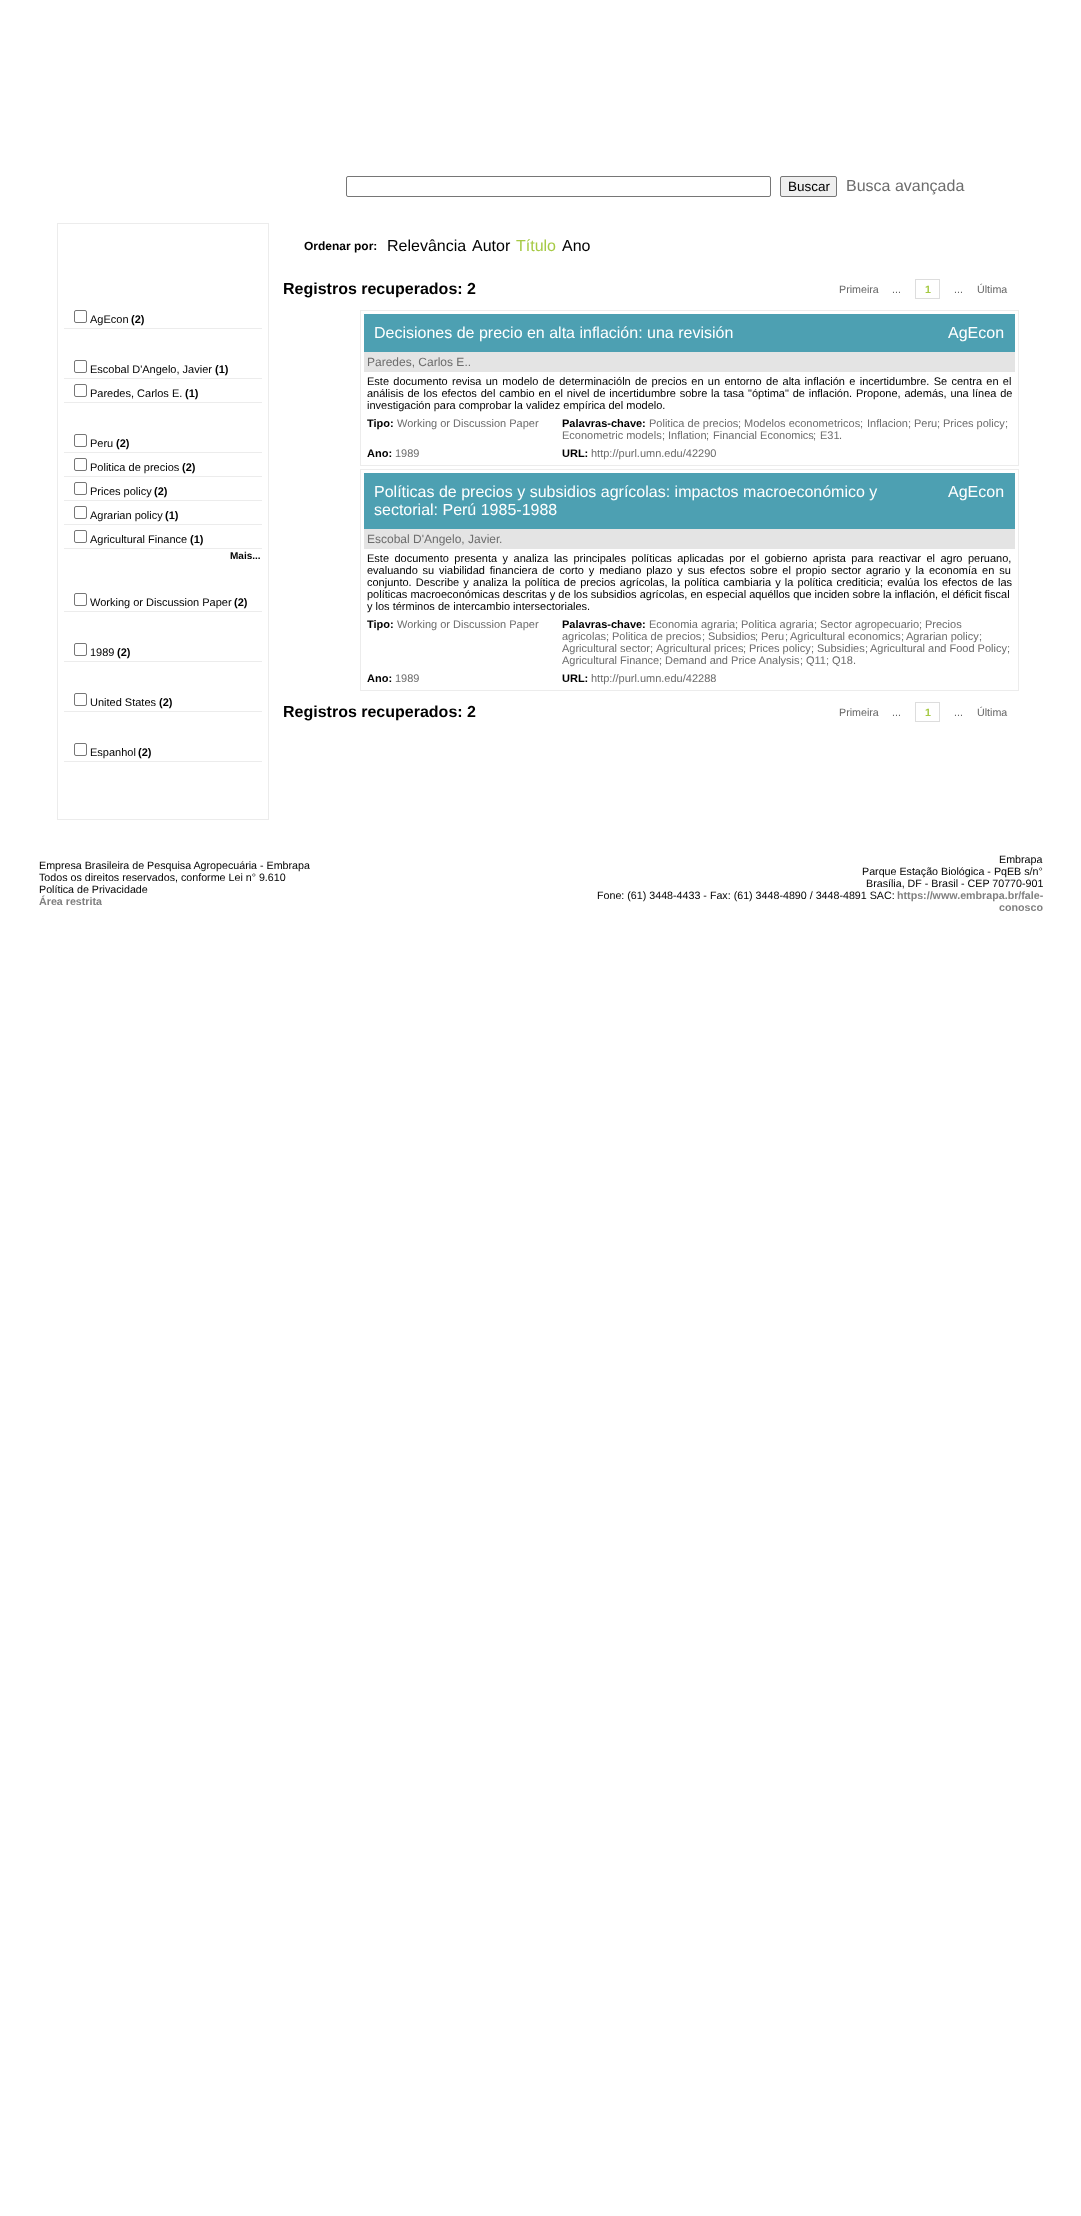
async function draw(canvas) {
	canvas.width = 1081;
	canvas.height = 2216;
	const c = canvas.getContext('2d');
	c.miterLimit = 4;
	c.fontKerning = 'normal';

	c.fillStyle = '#fff';
	c.fillRect(0, 0, 1081, 2216);
	c.beginPath();
	c.roundRect(346.5, 176.5, 424, 20, 1.5);
	c.strokeStyle = '#767676';
	c.stroke();
	c.fillStyle = '#efefef';
	c.beginPath();
	c.roundRect(780.5, 176.5, 56, 20, 1.5);
	c.fill();
	c.stroke();
	c.font = '13.5px Liberation Sans';
	c.fillStyle = '#000';
	c.fillText('Buscar', 788, 191);
	c.font = '16px Liberation Sans';
	c.fillStyle = '#6c6c6c';
	c.fillText('Busca avançada', 846, 191);
	for (const [x, y, w, h, color] of [
		[57, 223, 212, 597, '#ececec'],
		[58, 224, 210, 595, '#fff'],
		[64, 328, 198, 1, '#ececec'],
	]) {
		c.fillStyle = color;
		c.fillRect(x, y, w, h);
	}
	c.beginPath();
	c.roundRect(74.5, 310.5, 12, 12, 1.5);
	c.stroke();
	c.font = '11px Liberation Sans';
	c.fillStyle = '#000';
	c.fillText('AgEcon', 90, 323);
	c.font = 'bold 11px Liberation Sans';
	c.fillText('(2)', 131, 323);
	c.fillStyle = '#ececec';
	c.fillRect(64, 378, 198, 1);
	c.beginPath();
	c.roundRect(74.5, 360.5, 12, 12, 1.5);
	c.stroke();
	c.font = '11px Liberation Sans';
	c.fillStyle = '#000';
	c.fillText('Escobal D\'Angelo, Javier', 90, 373);
	c.font = 'bold 11px Liberation Sans';
	c.fillText('(1)', 215, 373);
	c.fillStyle = '#ececec';
	c.fillRect(64, 402, 198, 1);
	c.beginPath();
	c.roundRect(74.5, 384.5, 12, 12, 1.5);
	c.stroke();
	c.font = '11px Liberation Sans';
	c.fillStyle = '#000';
	c.fillText('Paredes, Carlos E.', 90, 397);
	c.font = 'bold 11px Liberation Sans';
	c.fillText('(1)', 185, 397);
	c.fillStyle = '#ececec';
	c.fillRect(64, 452, 198, 1);
	c.beginPath();
	c.roundRect(74.5, 434.5, 12, 12, 1.5);
	c.stroke();
	c.font = '11px Liberation Sans';
	c.fillStyle = '#000';
	c.fillText('Peru', 90, 447);
	c.font = 'bold 11px Liberation Sans';
	c.fillText('(2)', 116, 447);
	c.fillStyle = '#ececec';
	c.fillRect(64, 476, 198, 1);
	c.beginPath();
	c.roundRect(74.5, 458.5, 12, 12, 1.5);
	c.stroke();
	c.font = '11px Liberation Sans';
	c.fillStyle = '#000';
	c.fillText('Politica de precios', 90, 471);
	c.font = 'bold 11px Liberation Sans';
	c.fillText('(2)', 182, 471);
	c.fillStyle = '#ececec';
	c.fillRect(64, 500, 198, 1);
	c.beginPath();
	c.roundRect(74.5, 482.5, 12, 12, 1.5);
	c.stroke();
	c.font = '11px Liberation Sans';
	c.fillStyle = '#000';
	c.fillText('Prices policy', 90, 495);
	c.font = 'bold 11px Liberation Sans';
	c.fillText('(2)', 154, 495);
	c.fillStyle = '#ececec';
	c.fillRect(64, 524, 198, 1);
	c.beginPath();
	c.roundRect(74.5, 506.5, 12, 12, 1.5);
	c.stroke();
	c.font = '11px Liberation Sans';
	c.fillStyle = '#000';
	c.fillText('Agrarian policy', 90, 519);
	c.font = 'bold 11px Liberation Sans';
	c.fillText('(1)', 165, 519);
	c.fillStyle = '#ececec';
	c.fillRect(64, 548, 198, 1);
	c.beginPath();
	c.roundRect(74.5, 530.5, 12, 12, 1.5);
	c.stroke();
	c.font = '11px Liberation Sans';
	c.fillStyle = '#000';
	c.fillText('Agricultural Finance', 90, 543);
	c.font = 'bold 11px Liberation Sans';
	c.fillText('(1)', 190, 543);
	c.font = 'bold 10px Liberation Sans';
	c.fillText('Mais...', 230, 559);
	c.fillStyle = '#ececec';
	c.fillRect(64, 611, 198, 1);
	c.beginPath();
	c.roundRect(74.5, 593.5, 12, 12, 1.5);
	c.stroke();
	c.font = '11px Liberation Sans';
	c.fillStyle = '#000';
	c.fillText('Working or Discussion Paper', 90, 606);
	c.font = 'bold 11px Liberation Sans';
	c.fillText('(2)', 234, 606);
	c.fillStyle = '#ececec';
	c.fillRect(64, 661, 198, 1);
	c.beginPath();
	c.roundRect(74.5, 643.5, 12, 12, 1.5);
	c.stroke();
	c.font = '11px Liberation Sans';
	c.fillStyle = '#000';
	c.fillText('1989', 90, 656);
	c.font = 'bold 11px Liberation Sans';
	c.fillText('(2)', 117, 656);
	c.fillStyle = '#ececec';
	c.fillRect(64, 711, 198, 1);
	c.beginPath();
	c.roundRect(74.5, 693.5, 12, 12, 1.5);
	c.stroke();
	c.font = '11px Liberation Sans';
	c.fillStyle = '#000';
	c.fillText('United States', 90, 706);
	c.font = 'bold 11px Liberation Sans';
	c.fillText('(2)', 159, 706);
	c.fillStyle = '#ececec';
	c.fillRect(64, 761, 198, 1);
	c.beginPath();
	c.roundRect(74.5, 743.5, 12, 12, 1.5);
	c.stroke();
	c.font = '11px Liberation Sans';
	c.fillStyle = '#000';
	c.fillText('Espanhol', 90, 756);
	c.font = 'bold 11px Liberation Sans';
	c.fillText('(2)', 138, 756);
	c.font = 'bold 12px Liberation Sans';
	c.fillText('Ordenar por:', 304, 250);
	c.font = '16px Liberation Sans';
	c.fillText('Relevância', 387, 251);
	c.fillText('Autor', 472, 251);
	c.fillStyle = '#a6ca44';
	c.fillText('Título', 516, 251);
	c.fillStyle = '#000';
	c.fillText('Ano', 562, 251);
	c.font = 'bold 16px Liberation Sans';
	c.fillText('Registros recuperados: 2', 283, 294);
	c.font = '10.7px Liberation Sans';
	c.fillStyle = '#666';
	c.fillText('Primeira', 839, 293);
	c.fillText('...', 892, 293);
	c.strokeStyle = '#ddd';
	c.strokeRect(915.5, 279.5, 24, 19);
	c.font = 'bold 10.7px Liberation Sans';
	c.fillStyle = '#a6ca44';
	c.fillText('1', 925, 293);
	c.font = '10.7px Liberation Sans';
	c.fillStyle = '#666';
	c.fillText('...', 954, 293);
	c.fillText('Última', 977, 293);
	c.strokeStyle = '#ececec';
	c.strokeRect(360.5, 310.5, 658, 155);
	c.fillStyle = '#4da0b2';
	c.fillRect(364, 314, 651, 38);
	c.font = '16px Liberation Sans';
	c.fillStyle = '#fff';
	c.fillText('Decisiones de precio en alta inflación: una revisión', 374, 338);
	c.fillText('AgEcon', 948, 338);
	c.fillStyle = '#e4e4e4';
	c.fillRect(364, 352, 651, 20);
	c.font = '12px Liberation Sans';
	c.fillStyle = '#6c6c6c';
	c.fillText('Paredes, Carlos E..', 367, 366);
	c.wordSpacing = '1.25px';
	c.font = '11px Liberation Sans';
	c.fillStyle = '#000';
	c.fillText('Este documento revisa un modelo de determinacióln de precios en un entorno de alta inflación e incertidumbre. Se centra en el', 367, 385);
	c.wordSpacing = '0.75px';
	c.fillText('análisis de los efectos del cambio en el nivel de incertidumbre sobre la tasa "óptima" de inflación. Propone, además, una línea de', 367, 397);
	c.wordSpacing = '0px';
	c.fillText('investigación para comprobar la validez empírica del modelo.', 367, 409);
	c.font = 'bold 11px Liberation Sans';
	c.fillText('Tipo:', 367, 427);
	c.font = '11px Liberation Sans';
	c.fillStyle = '#6c6c6c';
	c.fillText('Working or Discussion Paper', 397, 427);
	c.font = 'bold 11px Liberation Sans';
	c.fillStyle = '#000';
	c.fillText('Palavras-chave:', 562, 427);
	c.font = '11px Liberation Sans';
	c.fillStyle = '#6c6c6c';
	c.fillText('Politica de precios', 649, 427);
	c.fillStyle = '#666';
	c.fillText(';', 738, 427);
	c.fillStyle = '#6c6c6c';
	c.fillText('Modelos econometricos', 744, 427);
	c.fillStyle = '#666';
	c.fillText(';', 860, 427);
	c.fillStyle = '#6c6c6c';
	c.fillText('Inflacion', 867, 427);
	c.fillStyle = '#666';
	c.fillText(';', 908, 427);
	c.fillStyle = '#6c6c6c';
	c.fillText('Peru', 914, 427);
	c.fillStyle = '#666';
	c.fillText(';', 937, 427);
	c.fillStyle = '#6c6c6c';
	c.fillText('Prices policy', 943, 427);
	c.fillStyle = '#666';
	c.fillText(';', 1005, 427);
	c.fillStyle = '#6c6c6c';
	c.fillText('Econometric models', 562, 439);
	c.fillStyle = '#666';
	c.fillText(';', 662, 439);
	c.fillStyle = '#6c6c6c';
	c.fillText('Inflation', 668, 439);
	c.fillStyle = '#666';
	c.fillText(';', 706, 439);
	c.fillStyle = '#6c6c6c';
	c.fillText('Financial Economics', 713, 439);
	c.fillStyle = '#666';
	c.fillText(';', 813, 439);
	c.fillStyle = '#6c6c6c';
	c.fillText('E31', 820, 439);
	c.fillStyle = '#666';
	c.fillText('.', 839, 439);
	c.font = 'bold 11px Liberation Sans';
	c.fillStyle = '#000';
	c.fillText('Ano:', 367, 457);
	c.font = '11px Liberation Sans';
	c.fillStyle = '#6c6c6c';
	c.fillText('1989', 395, 457);
	c.font = 'bold 11px Liberation Sans';
	c.fillStyle = '#000';
	c.fillText('URL:', 562, 457);
	c.font = '11px Liberation Sans';
	c.fillStyle = '#6c6c6c';
	c.fillText('http://purl.umn.edu/42290', 591, 457);
	c.strokeRect(360.5, 469.5, 658, 221);
	c.fillStyle = '#4da0b2';
	c.fillRect(364, 473, 651, 56);
	c.font = '16px Liberation Sans';
	c.fillStyle = '#fff';
	for (const [text, x, y] of [
		['Políticas de precios y subsidios agrícolas: impactos macroeconómico y', 374, 497],
		['sectorial: Perú 1985-1988', 374, 515],
		['AgEcon', 948, 497],
	]) {
		c.fillText(text, x, y);
	}
	c.fillStyle = '#e4e4e4';
	c.fillRect(364, 529, 651, 20);
	c.font = '12px Liberation Sans';
	c.fillStyle = '#6c6c6c';
	c.fillText('Escobal D\'Angelo, Javier', 367, 543);
	c.fillText('.', 499, 543);
	c.wordSpacing = '2.4px';
	c.font = '11px Liberation Sans';
	c.fillStyle = '#000';
	c.fillText('Este documento presenta y analiza las principales políticas aplicadas por el gobierno aprista para reactivar el agro peruano,', 367, 562);
	c.wordSpacing = '1.8px';
	c.fillText('evaluando su viabilidad financiera de corto y mediano plazo y sus efectos sobre el propio sector agrario y la economía en su', 367, 574);
	c.wordSpacing = '1.1px';
	c.fillText('conjunto. Describe y analiza la política de precios agrícolas, la política cambiaria y la política crediticia; evalúa los efectos de las', 367, 586);
	c.wordSpacing = '0px';
	c.fillText('políticas macroeconómicas descritas y de los subsidios agrícolas, en especial aquéllos que inciden sobre la inflación, el déficit fiscal', 367, 598);
	c.fillText('y los términos de intercambio intersectoriales.', 367, 610);
	c.font = 'bold 11px Liberation Sans';
	c.fillText('Tipo:', 367, 628);
	c.font = '11px Liberation Sans';
	c.fillStyle = '#6c6c6c';
	c.fillText('Working or Discussion Paper', 397, 628);
	c.font = 'bold 11px Liberation Sans';
	c.fillStyle = '#000';
	c.fillText('Palavras-chave:', 562, 628);
	c.font = '11px Liberation Sans';
	c.fillStyle = '#6c6c6c';
	c.fillText('Economia agraria', 649, 628);
	c.fillStyle = '#666';
	c.fillText(';', 735, 628);
	c.fillStyle = '#6c6c6c';
	c.fillText('Politica agraria', 741, 628);
	c.fillStyle = '#666';
	c.fillText(';', 814, 628);
	c.fillStyle = '#6c6c6c';
	c.fillText('Sector agropecuario', 820, 628);
	c.fillStyle = '#666';
	c.fillText(';', 919, 628);
	c.fillStyle = '#6c6c6c';
	c.fillText('Precios', 925, 628);
	c.fillText('agricolas', 562, 640);
	c.fillStyle = '#666';
	c.fillText(';', 606, 640);
	c.fillStyle = '#6c6c6c';
	c.fillText('Politica de precios', 612, 640);
	c.fillStyle = '#666';
	c.fillText(';', 702, 640);
	c.fillStyle = '#6c6c6c';
	c.fillText('Subsidios', 708, 640);
	c.fillStyle = '#666';
	c.fillText(';', 755, 640);
	c.fillStyle = '#6c6c6c';
	c.fillText('Peru', 761, 640);
	c.fillStyle = '#666';
	c.fillText(';', 785, 640);
	c.fillStyle = '#6c6c6c';
	c.fillText('Agricultural economics', 790, 640);
	c.fillStyle = '#666';
	c.fillText(';', 901, 640);
	c.fillStyle = '#6c6c6c';
	c.fillText('Agrarian policy', 906, 640);
	c.fillStyle = '#666';
	c.fillText(';', 979, 640);
	c.fillStyle = '#6c6c6c';
	c.fillText('Agricultural sector', 562, 652);
	c.fillStyle = '#666';
	c.fillText(';', 650, 652);
	c.fillStyle = '#6c6c6c';
	c.fillText('Agricultural prices', 656, 652);
	c.fillStyle = '#666';
	c.fillText(';', 743, 652);
	c.fillStyle = '#6c6c6c';
	c.fillText('Prices policy', 749, 652);
	c.fillStyle = '#666';
	c.fillText(';', 811, 652);
	c.fillStyle = '#6c6c6c';
	c.fillText('Subsidies', 817, 652);
	c.fillStyle = '#666';
	c.fillText(';', 865, 652);
	c.fillStyle = '#6c6c6c';
	c.fillText('Agricultural and Food Policy', 870, 652);
	c.fillStyle = '#666';
	c.fillText(';', 1007, 652);
	c.fillStyle = '#6c6c6c';
	c.fillText('Agricultural Finance', 562, 664);
	c.fillStyle = '#666';
	c.fillText(';', 659, 664);
	c.fillStyle = '#6c6c6c';
	c.fillText('Demand and Price Analysis', 665, 664);
	c.fillStyle = '#666';
	c.fillText(';', 800, 664);
	c.fillStyle = '#6c6c6c';
	c.fillText('Q11', 806, 664);
	c.fillStyle = '#666';
	c.fillText(';', 826, 664);
	c.fillStyle = '#6c6c6c';
	c.fillText('Q18', 832, 664);
	c.fillStyle = '#666';
	c.fillText('.', 853, 664);
	c.font = 'bold 11px Liberation Sans';
	c.fillStyle = '#000';
	c.fillText('Ano:', 367, 682);
	c.font = '11px Liberation Sans';
	c.fillStyle = '#6c6c6c';
	c.fillText('1989', 395, 682);
	c.font = 'bold 11px Liberation Sans';
	c.fillStyle = '#000';
	c.fillText('URL:', 562, 682);
	c.font = '11px Liberation Sans';
	c.fillStyle = '#6c6c6c';
	c.fillText('http://purl.umn.edu/42288', 591, 682);
	c.font = 'bold 16px Liberation Sans';
	c.fillStyle = '#000';
	c.fillText('Registros recuperados: 2', 283, 717);
	c.font = '10.7px Liberation Sans';
	c.fillStyle = '#666';
	c.fillText('Primeira', 839, 716);
	c.fillText('...', 892, 716);
	c.strokeStyle = '#ddd';
	c.strokeRect(915.5, 702.5, 24, 19);
	c.font = 'bold 10.7px Liberation Sans';
	c.fillStyle = '#a6ca44';
	c.fillText('1', 925, 716);
	c.font = '10.7px Liberation Sans';
	c.fillStyle = '#666';
	c.fillText('...', 954, 716);
	c.fillText('Última', 977, 716);
	c.fillStyle = '#000';
	for (const [text, x, y] of [
		['Empresa Brasileira de Pesquisa Agropecuária - Embrapa', 39, 869],
		['Todos os direitos reservados, conforme Lei n° 9.610', 39, 881],
		['Política de Privacidade', 39, 893],
	]) {
		c.fillText(text, x, y);
	}
	c.font = 'bold 10.7px Liberation Sans';
	c.fillStyle = '#808080';
	c.fillText('Área restrita', 39, 905);
	c.font = '10.7px Liberation Sans';
	c.fillStyle = '#000';
	for (const [text, x, y] of [
		['Embrapa', 999, 863],
		['Parque Estação Biológica - PqEB s/n°', 862, 875],
		['Brasília, DF - Brasil - CEP 70770-901', 866, 887],
		['Fone: (61) 3448-4433 - Fax: (61) 3448-4890 / 3448-4891 SAC:', 597, 899],
	]) {
		c.fillText(text, x, y);
	}
	c.font = 'bold 10.7px Liberation Sans';
	c.fillStyle = '#808080';
	c.fillText('https://www.embrapa.br/fale-', 897, 899);
	c.fillText('conosco', 999, 911);
}

draw(document.querySelector('canvas'));
